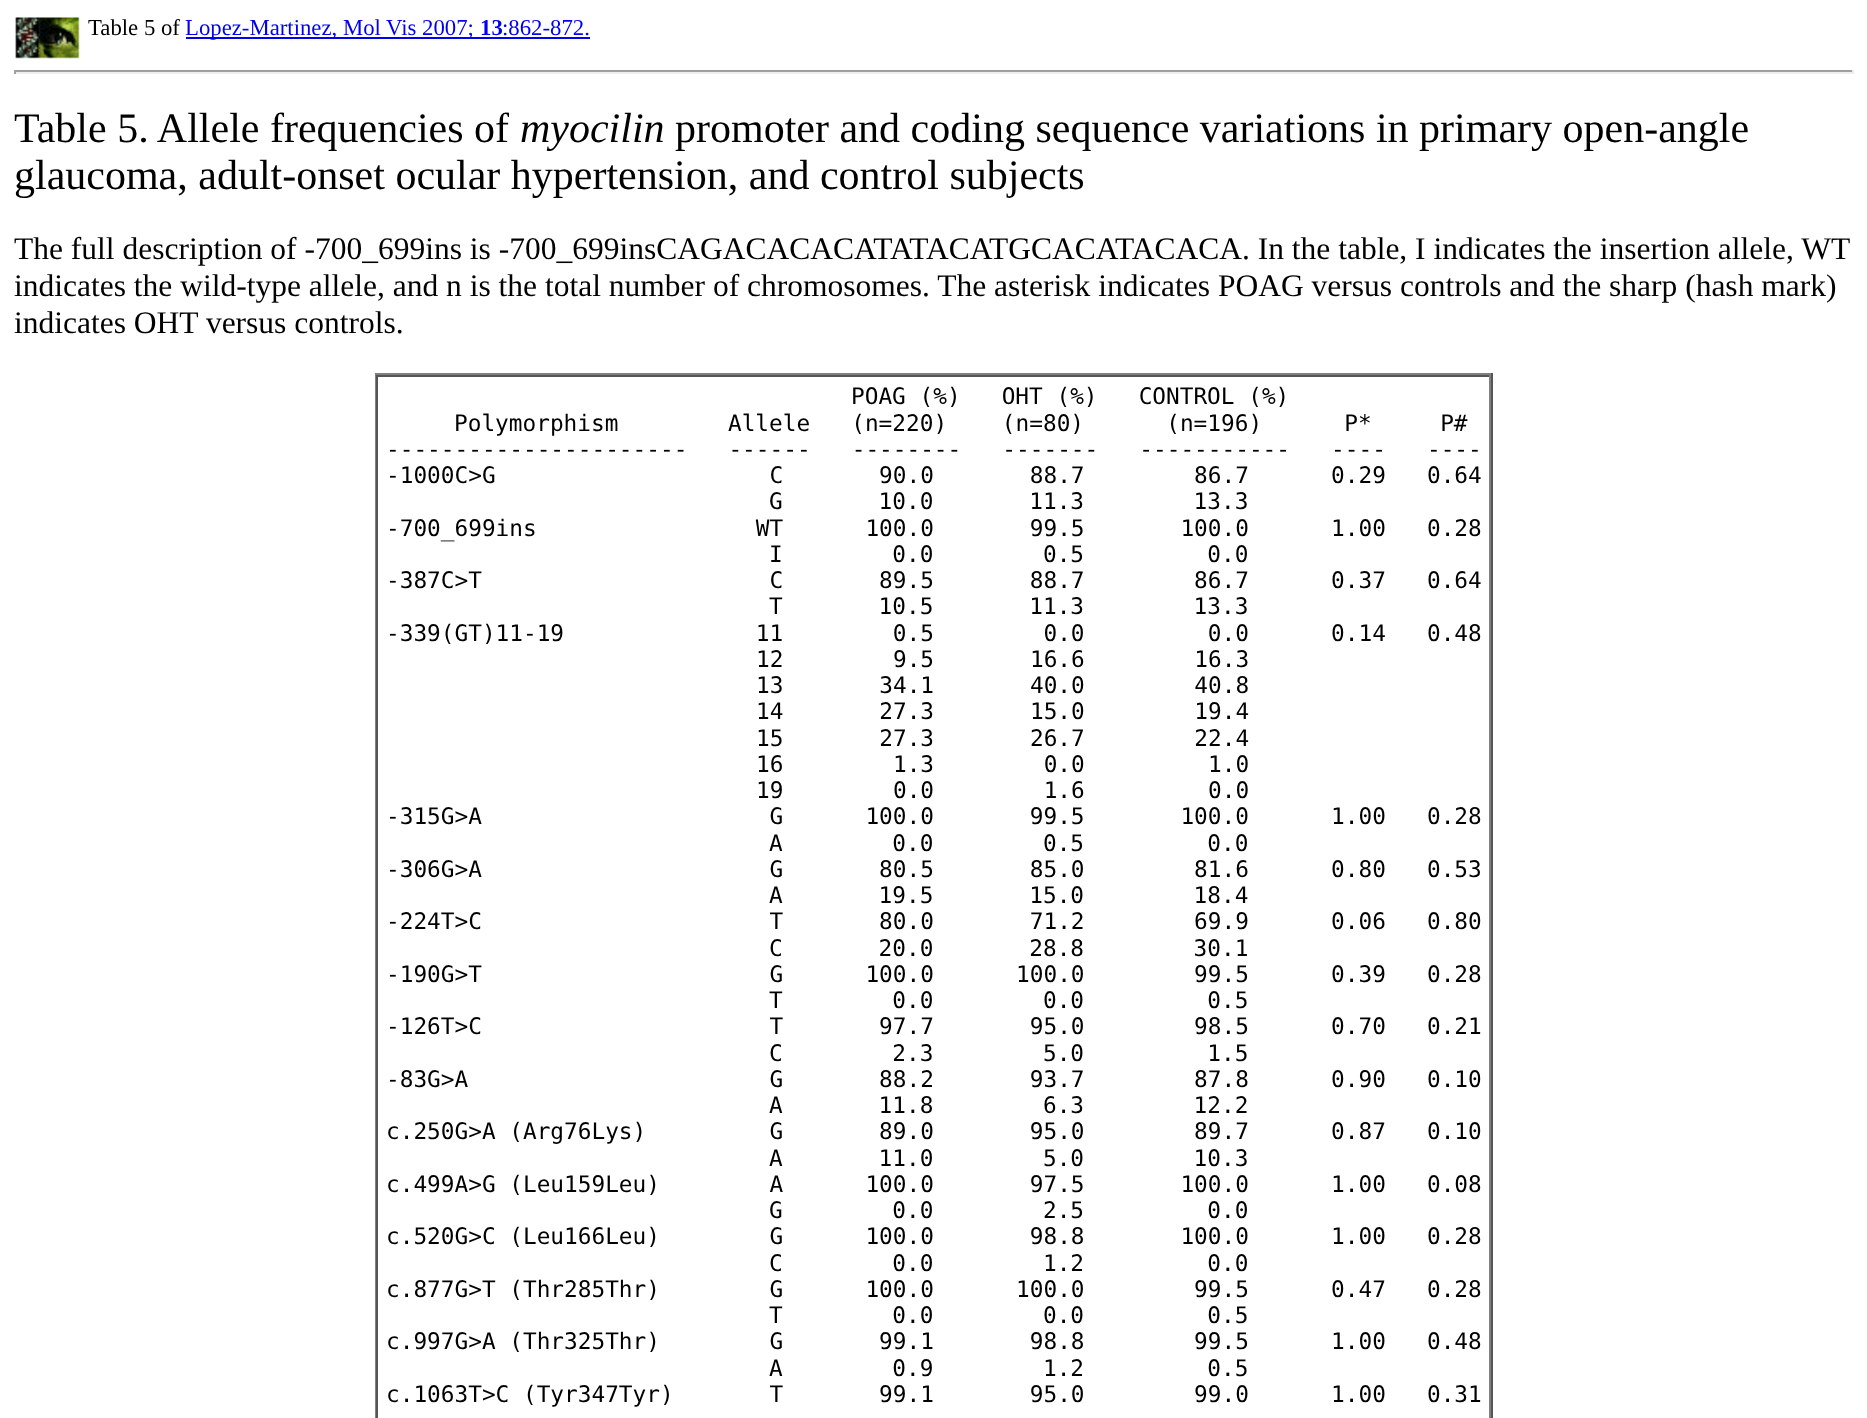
async function draw(canvas) {
	canvas.width = 1867;
	canvas.height = 1418;
	const c = canvas.getContext('2d');
	c.miterLimit = 4;
	c.fontKerning = 'normal';
	async function loadImage(src) {
		const img = new Image();
		img.src = src;
		await img.decode();
		return img;
	}

	c.fillStyle = '#fff';
	c.fillRect(0, 0, 1867, 1418);
	c.drawImage(await loadImage('img1.png'), 15, 17, 65, 42);
	c.font = '22.75px Liberation Serif';
	c.fillStyle = '#000';
	c.fillText('Table 5 of', 88, 35);
	c.fillStyle = '#00e';
	c.fillRect(186, 37, 404, 2);
	c.fillText('Lopez-Martinez, Mol Vis 2007;', 185, 35);
	c.font = 'bold 22.75px Liberation Serif';
	c.fillText('13', 480, 35);
	c.font = '22.75px Liberation Serif';
	c.fillText(':862-872.', 502, 35);
	for (const [x, y, w, h, color] of [
		[14, 70, 1839, 2, '#9f9f9f'],
		[1852, 70, 2, 4, '#eee'],
		[14, 72, 1839, 2, '#eee'],
		[14, 70, 2, 4, '#9f9f9f'],
	]) {
		c.fillStyle = color;
		c.fillRect(x, y, w, h);
	}
	c.font = '42px Liberation Serif';
	c.fillStyle = '#000';
	c.fillText('Table 5. Allele frequencies of', 14, 142);
	c.font = 'italic 42px Liberation Serif';
	c.fillText('myocilin', 520, 142);
	c.font = '42px Liberation Serif';
	c.fillText('promoter and coding sequence variations in primary open-angle', 675, 142);
	c.fillText('glaucoma, adult-onset ocular hypertension, and control subjects', 14, 189);
	c.font = '31.5px Liberation Serif';
	for (const [text, x, y] of [
		['The full description of -700_699ins is -700_699insCAGACACACATATACATGCACATACACA. In the table, I indicates the insertion allele, WT', 14, 259],
		['indicates the wild-type allele, and n is the total number of chromosomes. The asterisk indicates POAG versus controls and the sharp (hash mark)', 14, 296],
		['indicates OHT versus controls.', 14, 333],
	]) {
		c.fillText(text, x, y);
	}
	for (const [x, y, w, h, color] of [
		[375, 373, 1118, 2, '#808080'],
		[1491, 373, 2, 1045, '#555'],
		[375, 373, 2, 1045, '#808080'],
		[376, 375, 1115, 2, '#555'],
		[1489, 375, 2, 1043, '#808080'],
		[376, 375, 2, 1043, '#555'],
	]) {
		c.fillStyle = color;
		c.fillRect(x, y, w, h);
	}
	c.font = '22.75px DejaVu Sans Mono';
	c.fillStyle = '#000';
	for (const [text, x, y] of [
		['POAG (%)   OHT (%)   CONTROL (%)', 851, 404],
		['Polymorphism        Allele   (n=220)    (n=80)      (n=196)      P*     P#', 454, 431],
		['----------------------   ------   --------   -------   -----------   ----   ----', 386, 457],
		['-1000C>G                    C       90.0       88.7        86.7      0.29   0.64', 386, 483],
		['G       10.0       11.3        13.3', 769, 509],
		['-700_699ins                WT      100.0       99.5       100.0      1.00   0.28', 386, 536],
		['I        0.0        0.5         0.0', 769, 562],
		['-387C>T                     C       89.5       88.7        86.7      0.37   0.64', 386, 588],
		['T       10.5       11.3        13.3', 769, 614],
		['-339(GT)11-19              11        0.5        0.0         0.0      0.14   0.48', 386, 641],
		['12        9.5       16.6        16.3', 756, 667],
		['13       34.1       40.0        40.8', 756, 693],
		['14       27.3       15.0        19.4', 756, 719],
		['15       27.3       26.7        22.4', 756, 746],
		['16        1.3        0.0         1.0', 756, 772],
		['19        0.0        1.6         0.0', 756, 798],
		['-315G>A                     G      100.0       99.5       100.0      1.00   0.28', 386, 824],
		['A        0.0        0.5         0.0', 769, 851],
		['-306G>A                     G       80.5       85.0        81.6      0.80   0.53', 386, 877],
		['A       19.5       15.0        18.4', 769, 903],
		['-224T>C                     T       80.0       71.2        69.9      0.06   0.80', 386, 929],
		['C       20.0       28.8        30.1', 769, 956],
		['-190G>T                     G      100.0      100.0        99.5      0.39   0.28', 386, 982],
		['T        0.0        0.0         0.5', 769, 1008],
		['-126T>C                     T       97.7       95.0        98.5      0.70   0.21', 386, 1034],
		['C        2.3        5.0         1.5', 769, 1061],
		['-83G>A                      G       88.2       93.7        87.8      0.90   0.10', 386, 1087],
		['A       11.8        6.3        12.2', 769, 1113],
		['c.250G>A (Arg76Lys)         G       89.0       95.0        89.7      0.87   0.10', 386, 1139],
		['A       11.0        5.0        10.3', 769, 1166],
		['c.499A>G (Leu159Leu)        A      100.0       97.5       100.0      1.00   0.08', 386, 1192],
		['G        0.0        2.5         0.0', 769, 1218],
		['c.520G>C (Leu166Leu)        G      100.0       98.8       100.0      1.00   0.28', 386, 1244],
		['C        0.0        1.2         0.0', 769, 1271],
		['c.877G>T (Thr285Thr)        G      100.0      100.0        99.5      0.47   0.28', 386, 1297],
		['T        0.0        0.0         0.5', 769, 1323],
		['c.997G>A (Thr325Thr)        G       99.1       98.8        99.5      1.00   0.48', 386, 1349],
		['A        0.9        1.2         0.5', 769, 1376],
		['c.1063T>C (Tyr347Tyr)       T       99.1       95.0        99.0      1.00   0.31', 386, 1402],
	]) {
		c.fillText(text, x, y);
	}
}

draw(document.querySelector('canvas'));
